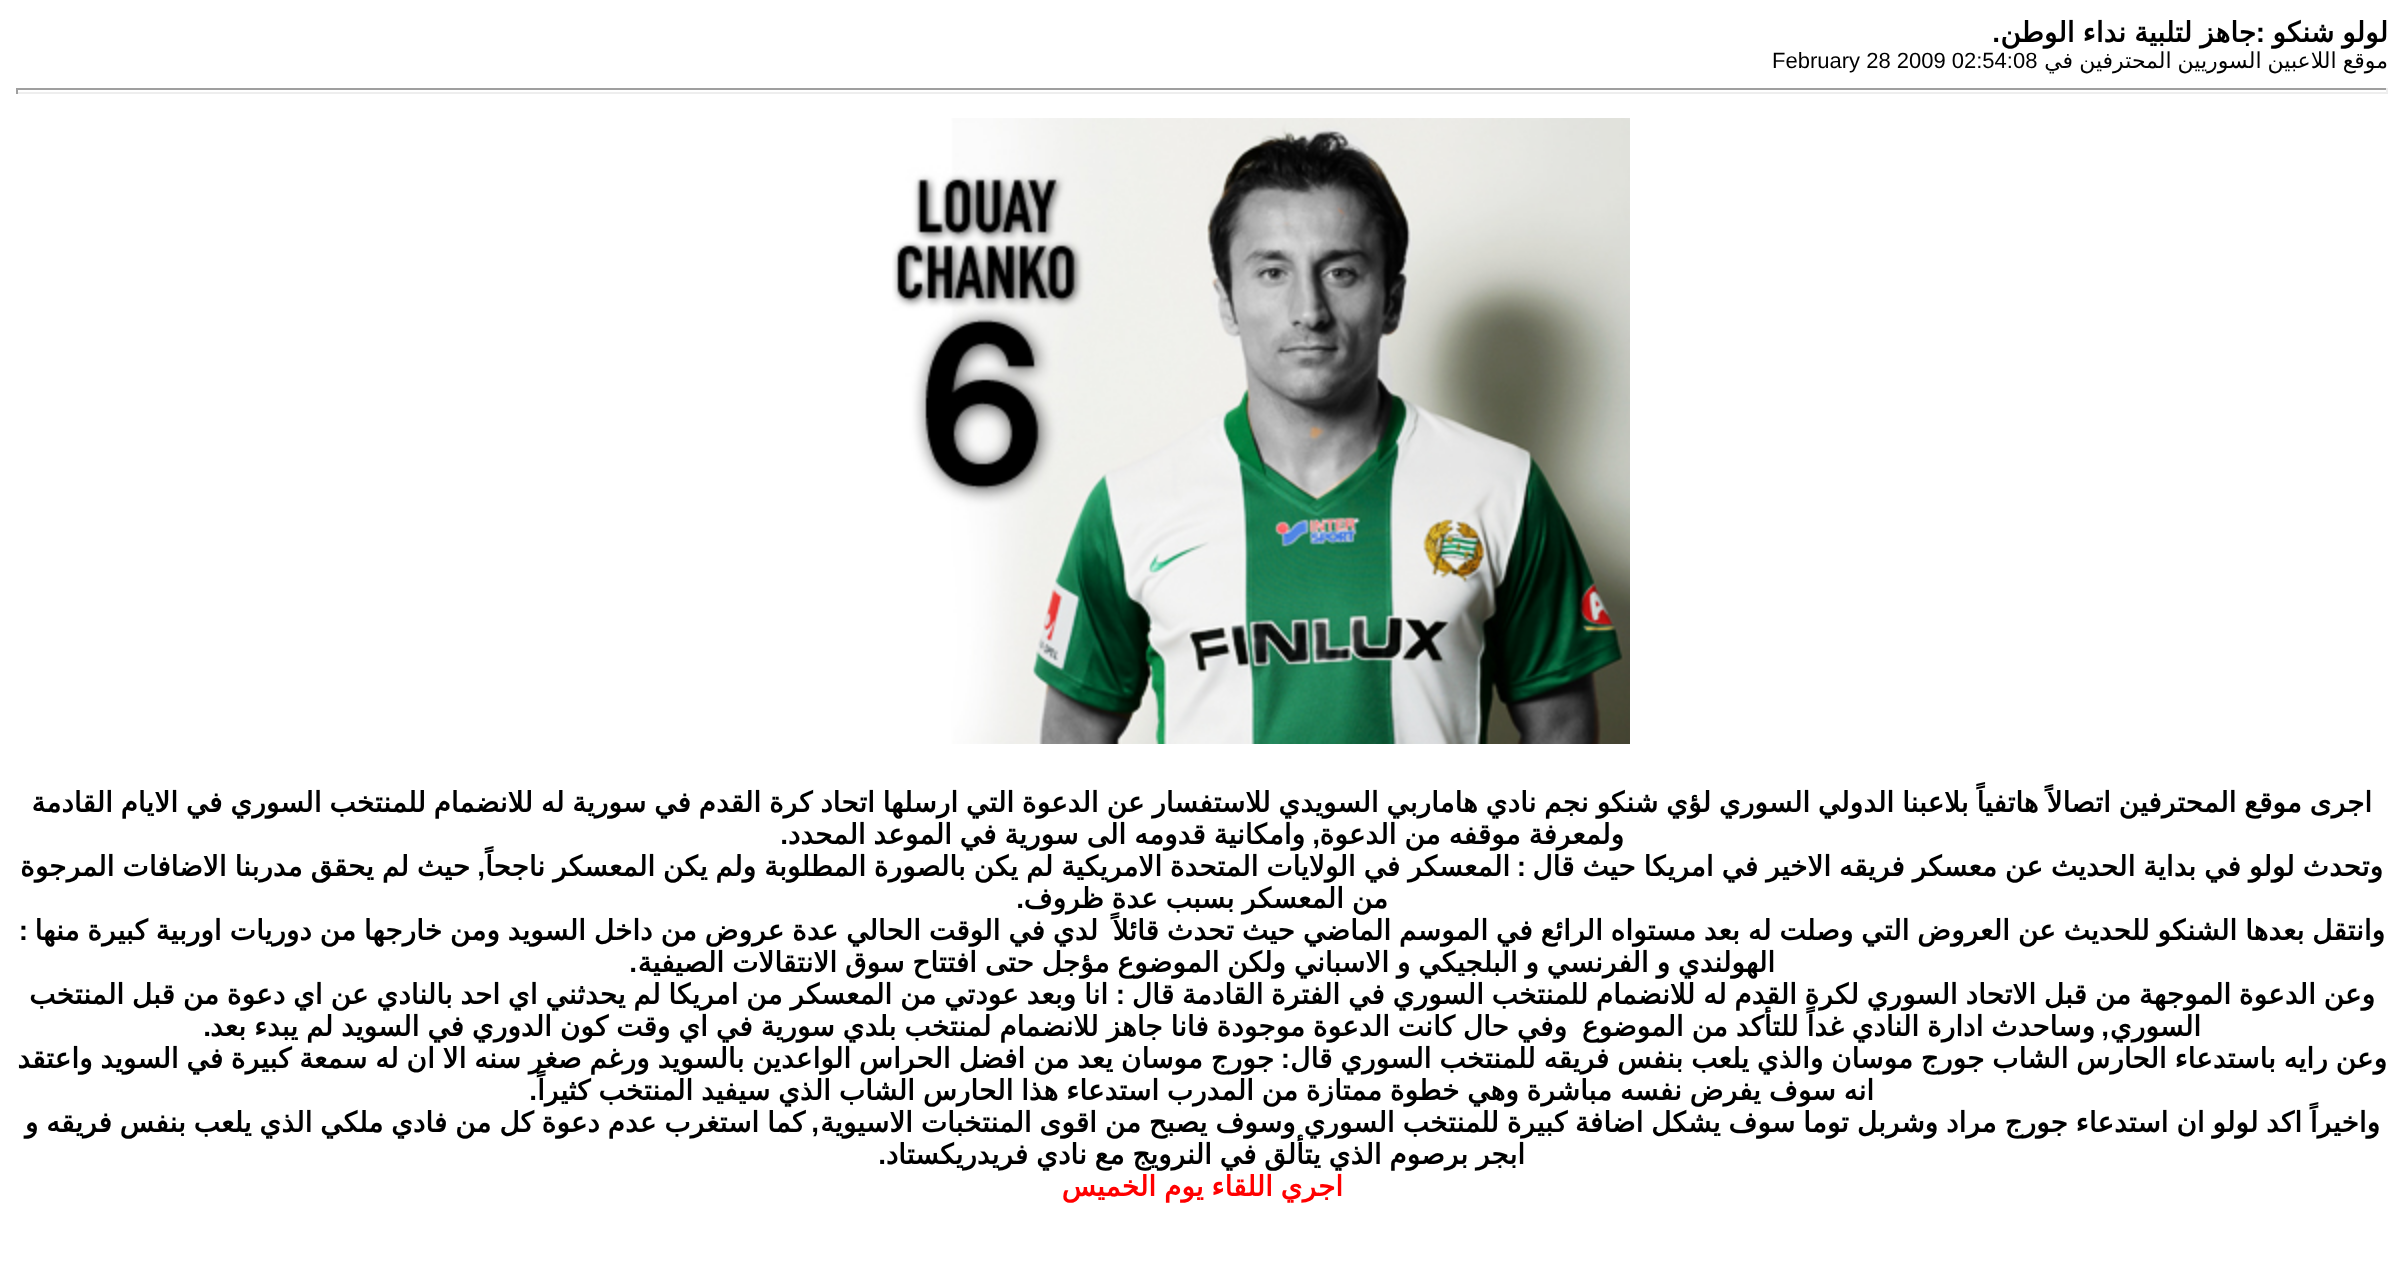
async function draw(canvas) {
	canvas.width = 2403;
	canvas.height = 1275;
	const c = canvas.getContext('2d');
	c.miterLimit = 4;
	c.fontKerning = 'normal';
	async function loadImage(src) {
		const img = new Image();
		img.src = src;
		await img.decode();
		return img;
	}

	c.fillStyle = '#fff';
	c.fillRect(0, 0, 2403, 1275);
	c.wordSpacing = '-1px';
	c.direction = 'rtl';
	c.font = 'bold 28px DejaVu Sans';
	c.fillStyle = '#000';
	c.fillText('لولو شنكو', 2388, 42);
	c.wordSpacing = '0px';
	c.font = 'bold 28px Liberation Sans';
	c.fillText(':', 2265, 42);
	c.wordSpacing = '-1px';
	c.font = 'bold 28px DejaVu Sans';
	c.fillText('جاهز لتلبية نداء الوطن', 2256, 42);
	c.wordSpacing = '0px';
	c.font = 'bold 28px Liberation Sans';
	c.fillText('.', 2000, 42);
	c.wordSpacing = '-1px';
	c.font = '22px DejaVu Sans';
	c.fillText('موقع اللاعبين السوريين المحترفين', 2388, 68);
	c.wordSpacing = '0px';
	c.fillText('في', 2073, 68);
	c.direction = 'ltr';
	c.font = '22px Liberation Sans';
	c.fillText('February 28 2009 02:54:08', 1772, 68);
	for (const [x, y, w, h, color] of [
		[16, 88, 2372, 2, '#9f9f9f'],
		[2386, 88, 2, 6, '#eee'],
		[16, 92, 2372, 2, '#eee'],
		[16, 88, 2, 6, '#9f9f9f'],
	]) {
		c.fillStyle = color;
		c.fillRect(x, y, w, h);
	}
	c.drawImage(await loadImage('img1.png'), 892, 118, 738, 626);
	c.wordSpacing = '-1.1px';
	c.direction = 'rtl';
	c.font = 'bold 28px DejaVu Sans';
	c.fillStyle = '#000';
	c.fillText('اجرى موقع المحترفين اتصالاً هاتفياً بلاعبنا الدولي السوري لؤي شنكو نجم نادي هاماربي السويدي للاستفسار عن الدعوة التي ارسلها اتحاد كرة القدم في سورية له للانضمام للمنتخب السوري في الايام القادمة', 2372, 812);
	c.wordSpacing = '-1px';
	c.fillText('ولمعرفة موقفه من الدعوة', 1624, 844);
	c.wordSpacing = '0px';
	c.font = 'bold 28px Liberation Sans';
	c.fillText(',', 1320, 844);
	c.wordSpacing = '-1px';
	c.font = 'bold 28px DejaVu Sans';
	c.fillText('وامكانية قدومه الى سورية في الموعد المحدد', 1305, 844);
	c.wordSpacing = '0px';
	c.font = 'bold 28px Liberation Sans';
	c.fillText('.', 788, 844);
	c.wordSpacing = '-1px';
	c.font = 'bold 28px DejaVu Sans';
	c.fillText('وتحدث لولو في بداية الحديث عن معسكر فريقه الاخير في امريكا حيث قال', 2383, 876);
	c.fillText('المعسكر في الولايات المتحدة الامريكية لم يكن بالصورة المطلوبة ولم يكن المعسكر ناجحاً', 1510, 876);
	c.wordSpacing = '0px';
	c.font = 'bold 28px Liberation Sans';
	c.fillText(':', 1526, 876);
	c.fillText(',', 485, 876);
	c.wordSpacing = '-1px';
	c.font = 'bold 28px DejaVu Sans';
	c.fillText('حيث لم يحقق مدربنا الاضافات المرجوة', 470, 876);
	c.wordSpacing = '-1.1px';
	c.fillText('من المعسكر بسبب عدة ظروف', 1388, 908);
	c.wordSpacing = '0px';
	c.font = 'bold 28px Liberation Sans';
	c.fillText('.', 1024, 908);
	c.wordSpacing = '-1px';
	c.font = 'bold 28px DejaVu Sans';
	c.fillText('وانتقل بعدها الشنكو للحديث عن العروض التي وصلت له بعد مستواه الرائع في الموسم الماضي حيث تحدث قائلاً', 2385, 940);
	c.fillText('لدي في الوقت الحالي عدة عروض من داخل السويد ومن خارجها من دوريات اوربية كبيرة منها', 1098, 940);
	c.wordSpacing = '0px';
	c.font = 'bold 28px Liberation Sans';
	c.fillText(':', 28, 940);
	c.wordSpacing = '-1.1px';
	c.font = 'bold 28px DejaVu Sans';
	c.fillText('الهولندي و الفرنسي و البلجيكي و الاسباني ولكن الموضوع مؤجل حتى افتتاح سوق الانتقالات الصيفية', 1775, 972);
	c.wordSpacing = '0px';
	c.font = 'bold 28px Liberation Sans';
	c.fillText('.', 637, 972);
	c.wordSpacing = '-1.1px';
	c.font = 'bold 28px DejaVu Sans';
	c.fillText('وعن الدعوة الموجهة من قبل الاتحاد السوري لكرة القدم له للانضمام للمنتخب السوري في الفترة القادمة قال', 2375, 1004);
	c.wordSpacing = '0px';
	c.font = 'bold 28px Liberation Sans';
	c.fillText(':', 1125, 1004);
	c.wordSpacing = '-1.1px';
	c.font = 'bold 28px DejaVu Sans';
	c.fillText('انا وبعد عودتي من المعسكر من امريكا لم يحدثني اي احد بالنادي عن اي دعوة من قبل المنتخب', 1108, 1004);
	c.wordSpacing = '0px';
	c.fillText('السوري', 2201, 1036);
	c.font = 'bold 28px Liberation Sans';
	c.fillText(',', 2109, 1036);
	c.wordSpacing = '-1px';
	c.font = 'bold 28px DejaVu Sans';
	c.fillText('وساحدث ادارة النادي غداً للتأكد من الموضوع', 2095, 1036);
	c.fillText('وفي حال كانت الدعوة موجودة فانا جاهز للانضمام لمنتخب بلدي سورية في اي وقت كون الدوري في السويد لم يبدء بعد', 1567, 1036);
	c.wordSpacing = '0px';
	c.font = 'bold 28px Liberation Sans';
	c.fillText('.', 211, 1036);
	c.wordSpacing = '-1.1px';
	c.font = 'bold 28px DejaVu Sans';
	c.fillText('وعن رايه باستدعاء الحارس الشاب جورج موسان والذي يلعب بنفس فريقه للمنتخب السوري قال', 2387, 1068);
	c.fillText('جورج موسان يعد من افضل الحراس الواعدين بالسويد ورغم صغر سنه الا ان له سمعة كبيرة في السويد واعتقد', 1274, 1068);
	c.wordSpacing = '0px';
	c.font = 'bold 28px Liberation Sans';
	c.fillText(':', 1290, 1068);
	c.wordSpacing = '-1.1px';
	c.font = 'bold 28px DejaVu Sans';
	c.fillText('انه سوف يفرض نفسه مباشرة وهي خطوة ممتازة من المدرب استدعاء هذا الحارس الشاب الذي سيفيد المنتخب كثيراً', 1874, 1100);
	c.wordSpacing = '0px';
	c.font = 'bold 28px Liberation Sans';
	c.fillText('.', 537, 1100);
	c.wordSpacing = '-1.1px';
	c.font = 'bold 28px DejaVu Sans';
	c.fillText('واخيراً اكد لولو ان استدعاء جورج مراد وشربل توما سوف يشكل اضافة كبيرة للمنتخب السوري وسوف يصبح من اقوى المنتخبات الاسيوية', 2380, 1132);
	c.fillText('كما استغرب عدم دعوة كل من فادي ملكي الذي يلعب بنفس فريقه و', 805, 1132);
	c.wordSpacing = '0px';
	c.font = 'bold 28px Liberation Sans';
	c.fillText(',', 819, 1132);
	c.wordSpacing = '-1.1px';
	c.font = 'bold 28px DejaVu Sans';
	c.fillText('ابجر برصوم الذي يتألق في النرويج مع نادي فريدريكستاد', 1525, 1164);
	c.wordSpacing = '0px';
	c.font = 'bold 28px Liberation Sans';
	c.fillText('.', 886, 1164);
	c.wordSpacing = '-1.1px';
	c.font = 'bold 28px DejaVu Sans';
	c.fillStyle = '#f00';
	c.fillText('اجري اللقاء يوم الخميس', 1343, 1196);
}

draw(document.querySelector('canvas'));
